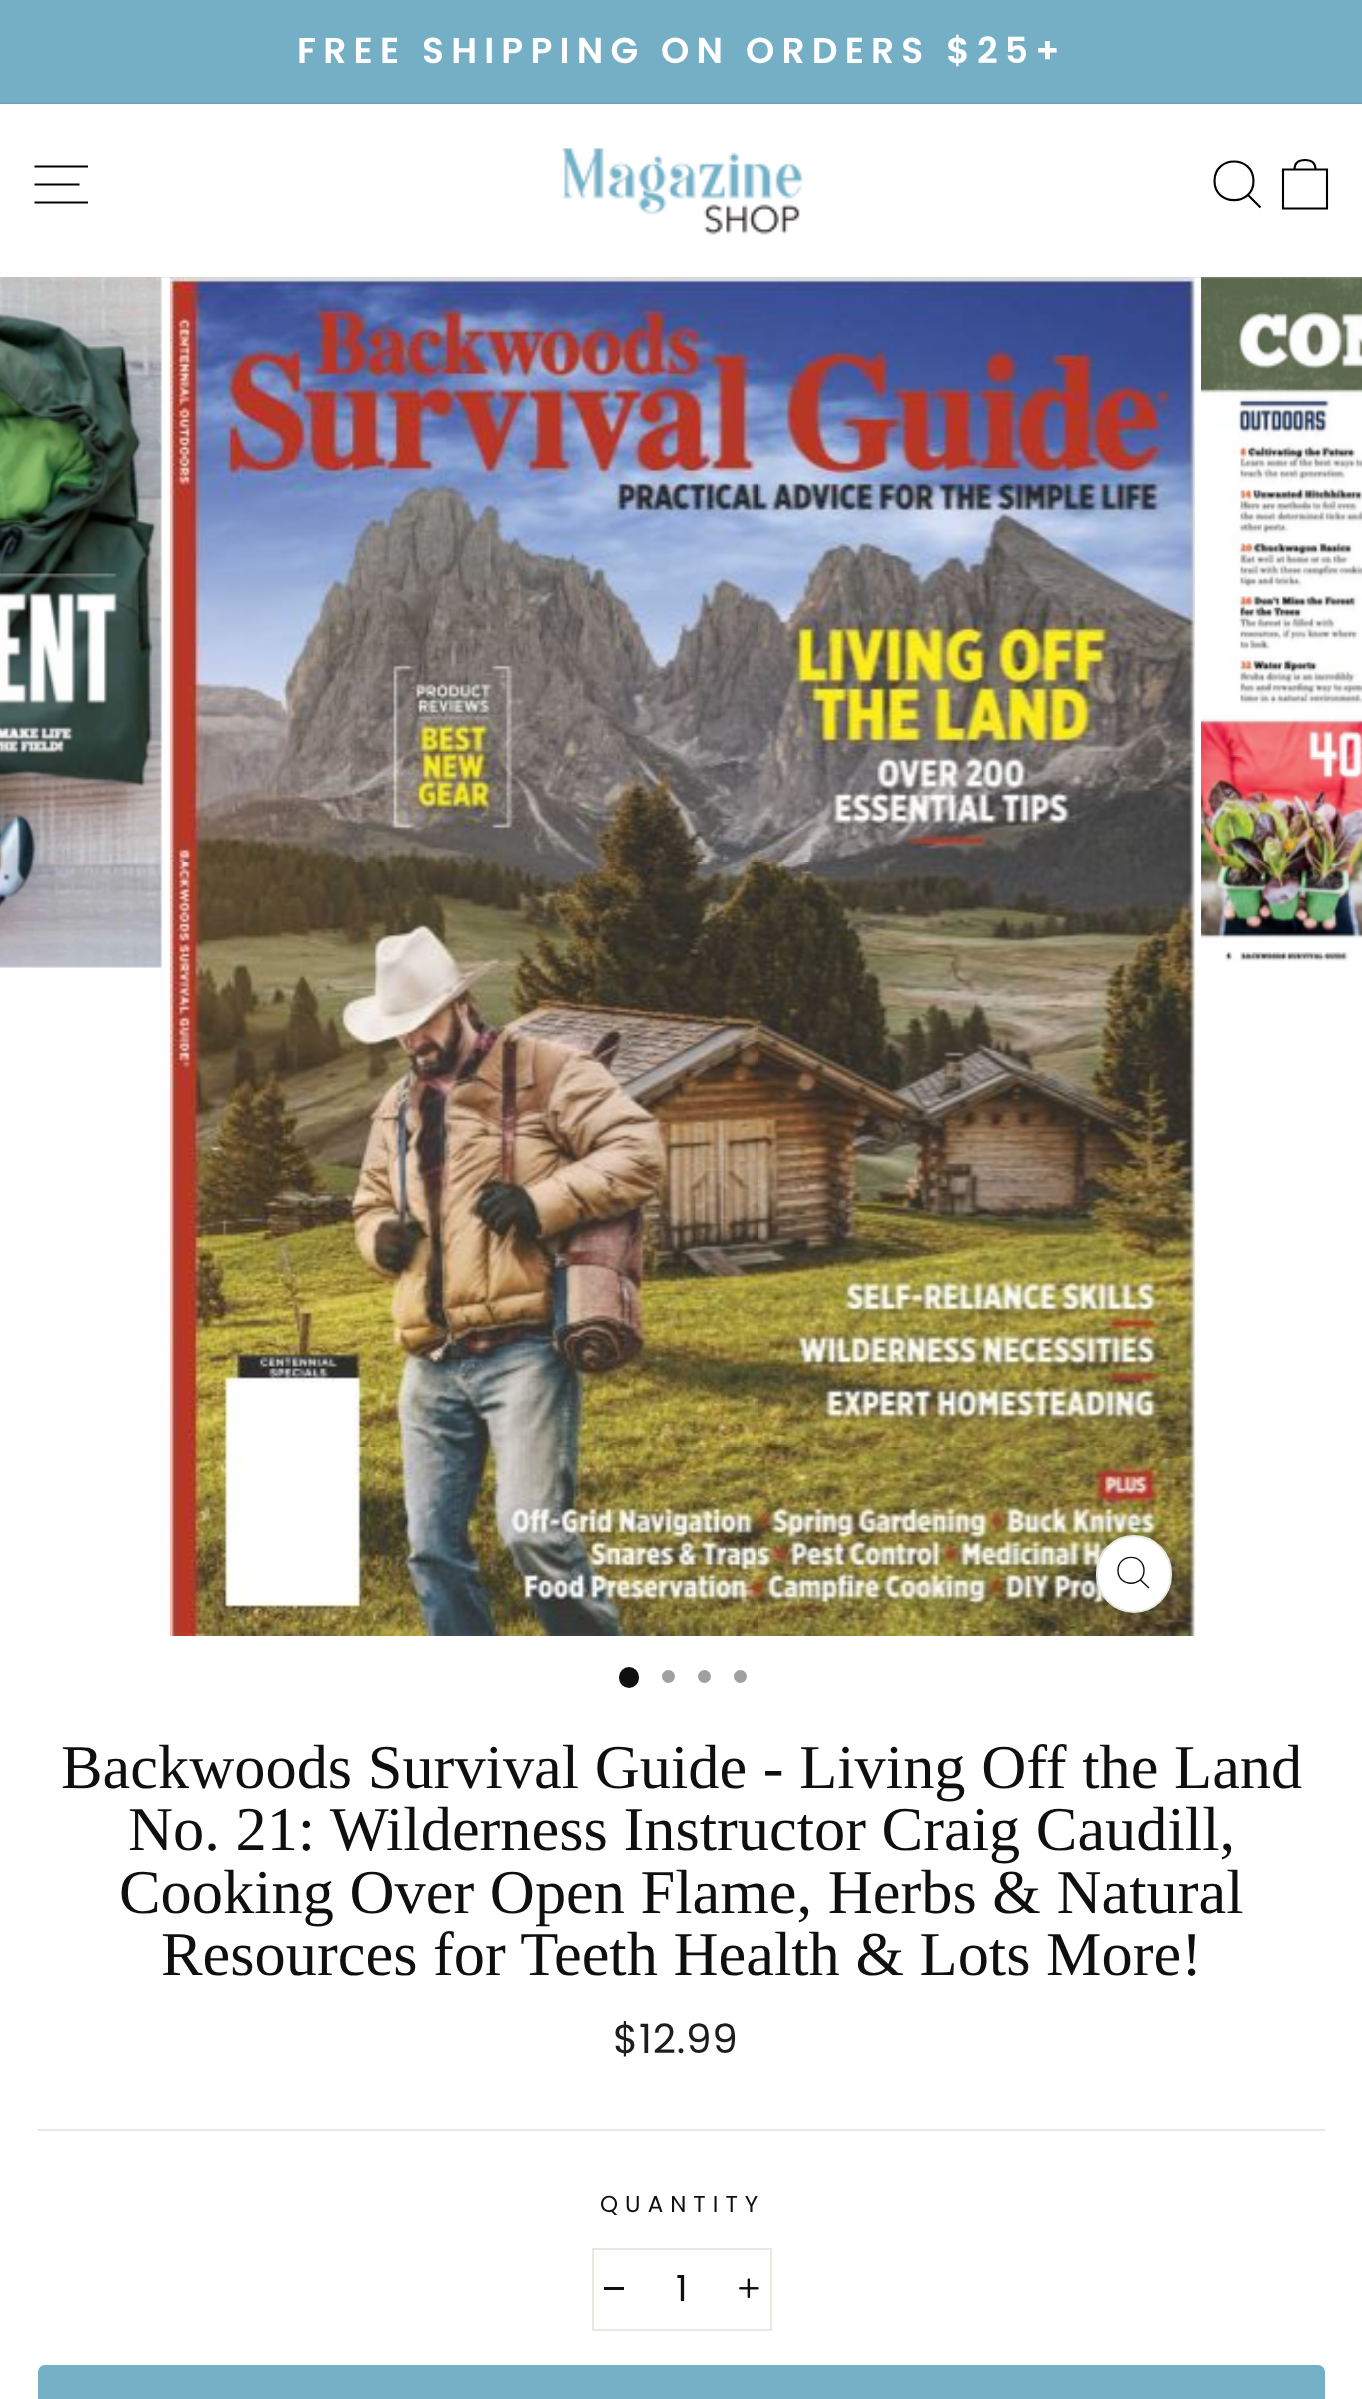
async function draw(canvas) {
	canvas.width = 1362;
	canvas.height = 2399;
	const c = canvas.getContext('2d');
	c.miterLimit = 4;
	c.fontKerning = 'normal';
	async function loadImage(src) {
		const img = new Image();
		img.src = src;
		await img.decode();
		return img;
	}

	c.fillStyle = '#fff';
	c.fillRect(0, 0, 1362, 2399);
	c.fillStyle = '#74afc5';
	c.fillRect(0, 0, 1362, 104);
	c.letterSpacing = '7.2px';
	c.font = '600 36px Poppins';
	c.fillStyle = '#fff';
	c.fillText('FREE SHIPPING ON ORDERS $25+', 297, 63);
	c.drawImage(await loadImage('img2.png'), 0, 277, 162, 691);
	c.drawImage(await loadImage('img3.png'), 170, 277, 1025, 1359);
	c.drawImage(await loadImage('img4.png'), 1201, 277, 161, 685);
	c.fillStyle = '#00000033';
	c.filter = 'blur(1px)';
	c.beginPath();
	c.rect(0, 104, 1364, 173);
	c.fill();
	c.filter = 'none';
	c.fillStyle = '#fff';
	c.fillRect(0, 104, 1362, 173);
	c.beginPath();
	c.moveTo(34.5, 166.5);
	c.lineTo(88, 166.5);
	c.moveTo(34.5, 184.5);
	c.lineTo(79.5, 184.5);
	c.moveTo(34.5, 202.5);
	c.lineTo(88, 202.5);
	c.strokeStyle = '#000';
	c.lineWidth = 2.1;
	c.stroke();
	c.drawImage(await loadImage('img1.png'), 561, 147, 243, 88);
	c.beginPath();
	c.moveTo(1253.5, 181);
	c.bezierCurveTo(1253.5, 206.5, 1214.5, 206.5, 1214.5, 181);
	c.bezierCurveTo(1214.5, 155, 1253.5, 155, 1253.5, 181);
	c.closePath();
	c.moveTo(1260.5, 207.5);
	c.lineTo(1248, 195);
	c.stroke();
	c.beginPath();
	c.moveTo(1283, 169.5);
	c.lineTo(1327, 169.5);
	c.lineTo(1327, 208.5);
	c.lineTo(1283, 208.5);
	c.closePath();
	c.moveTo(1294.5, 169.5);
	c.bezierCurveTo(1294.5, 162, 1299.5, 160, 1305, 160);
	c.bezierCurveTo(1310.5, 160, 1315.5, 162, 1315.5, 169.5);
	c.stroke();
	c.beginPath();
	c.roundRect(1097, 1536, 74, 76, 37);
	c.fill();
	c.strokeStyle = '#e8e8e1';
	c.lineWidth = 2;
	c.stroke();
	c.beginPath();
	c.moveTo(1144, 1570.5);
	c.bezierCurveTo(1144, 1587.5, 1118, 1587.5, 1118, 1570.5);
	c.bezierCurveTo(1118, 1553, 1144, 1553, 1144, 1570.5);
	c.closePath();
	c.moveTo(1149, 1588);
	c.lineTo(1140.5, 1580);
	c.strokeStyle = '#0f0f0f';
	c.lineWidth = 1.4;
	c.stroke();
	c.fillStyle = '#0f0f0f';
	c.beginPath();
	c.roundRect(619, 1667, 20, 21, 10);
	c.fill();
	c.fillStyle = '#9f9f9f';
	c.beginPath();
	c.arc(668.5, 1676.5, 6.5, 0, 2 * Math.PI);
	c.fill();
	c.beginPath();
	c.arc(704.5, 1676.5, 6.5, 0, 2 * Math.PI);
	c.fill();
	c.beginPath();
	c.arc(740.5, 1676.5, 6.5, 0, 2 * Math.PI);
	c.fill();
	c.letterSpacing = '0px';
	c.font = '62.4px Liberation Serif';
	c.fillStyle = '#0f0f0f';
	for (const [text, x, y] of [
		['Backwoods Survival Guide - Living Off the Land', 61, 1788],
		['No. 21: Wilderness Instructor Craig Caudill,', 128, 1850],
		['Cooking Over Open Flame, Herbs & Natural', 119, 1913],
		['Resources for Teeth Health & Lots More!', 161, 1975],
	]) {
		c.fillText(text, x, y);
	}
	c.letterSpacing = '0.75px';
	c.font = '40.5px Poppins';
	c.fillStyle = '#1c1d1d';
	c.fillText('$12.99', 613, 2053);
	c.fillStyle = '#e8e8e1';
	c.fillRect(38, 2129, 1287, 2);
	c.letterSpacing = '7px';
	c.font = '23px Poppins';
	c.fillStyle = '#0f0f0f';
	c.fillText('QUANTITY', 600, 2212);
	c.strokeStyle = '#e8e8e1';
	c.lineWidth = 2;
	c.strokeRect(593, 2249, 178, 81);
	c.fillRect(604, 2287, 20, 3);
	c.letterSpacing = '1px';
	c.font = '36px Poppins';
	c.fillText('1', 676, 2301);
	c.drawImage(await loadImage('img5.png'), 739, 2278, 20, 21);
	c.fillStyle = '#74b1c7';
	c.beginPath();
	c.roundRect(38, 2365, 1287, 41, 7);
	c.fill();
}

draw(document.querySelector('canvas'));
